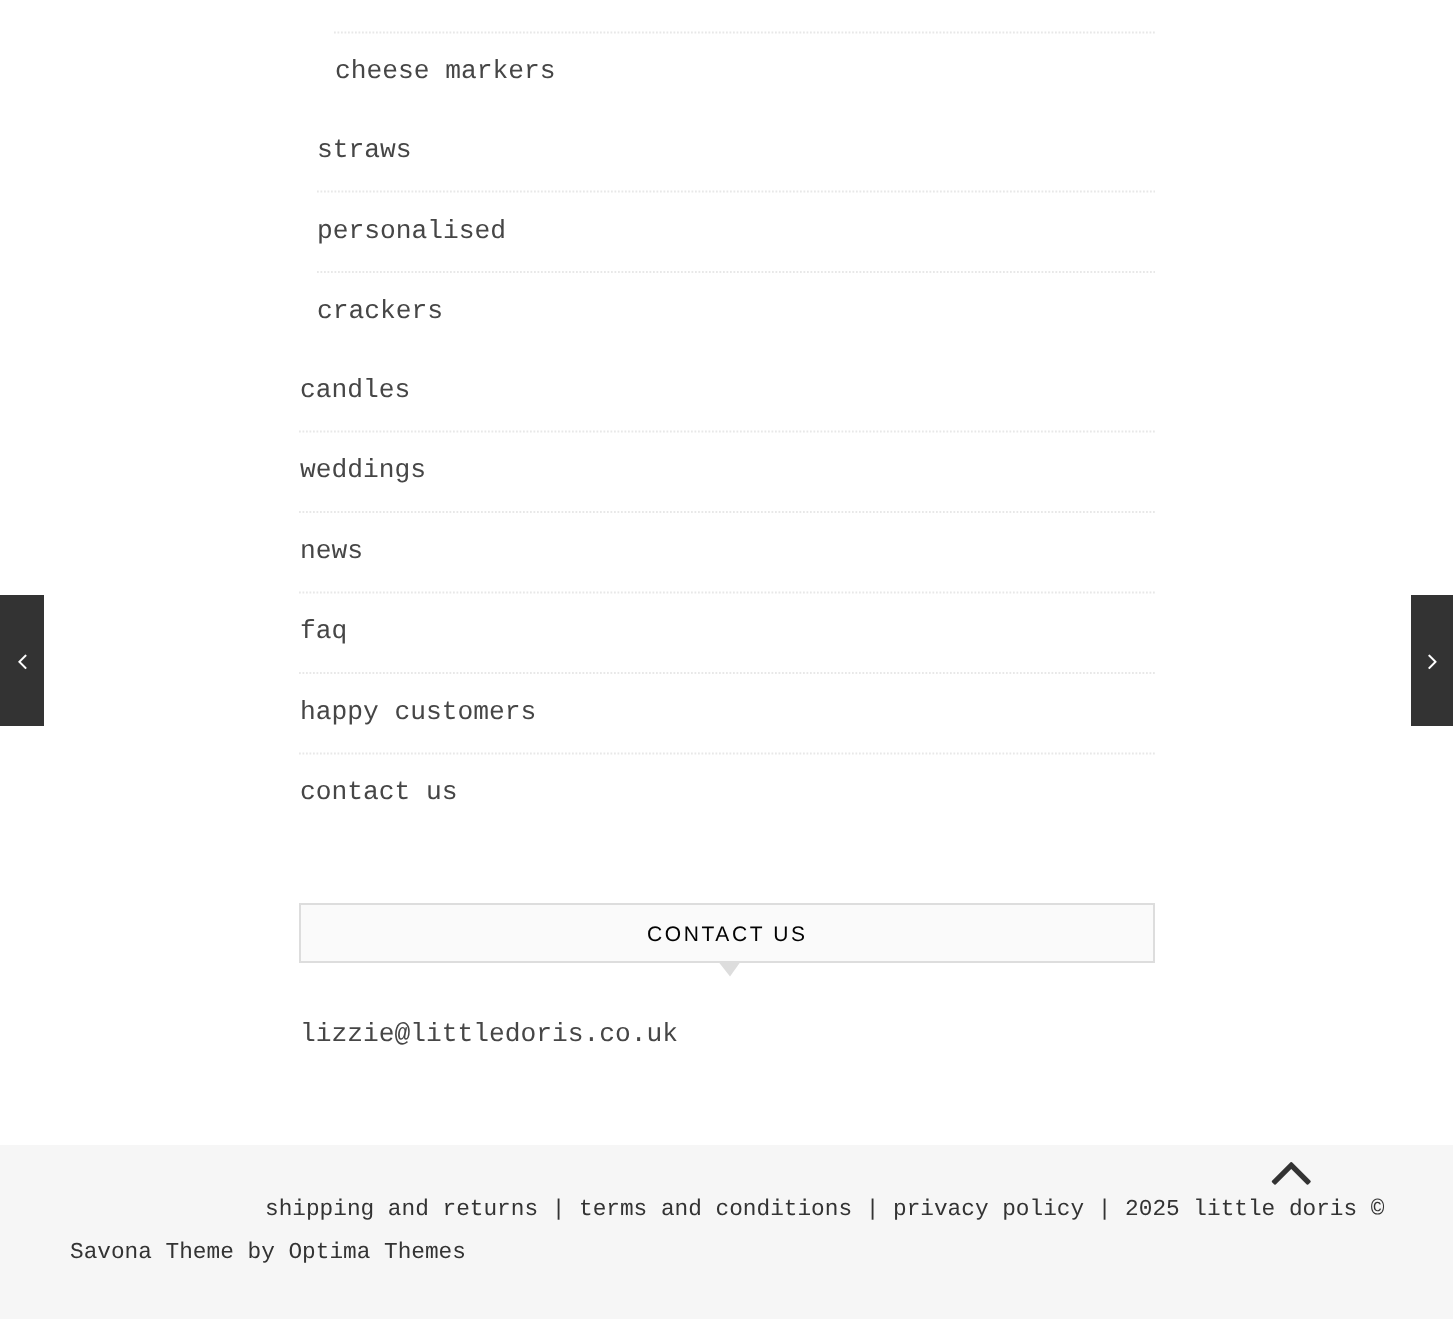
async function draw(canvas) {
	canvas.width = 1453;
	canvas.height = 1319;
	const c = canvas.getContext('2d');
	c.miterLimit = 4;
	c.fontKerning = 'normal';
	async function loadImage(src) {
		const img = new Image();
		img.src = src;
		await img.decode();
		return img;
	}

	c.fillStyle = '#fff';
	c.fillRect(0, 0, 1453, 1319);
	c.beginPath();
	c.moveTo(334, 32.5);
	c.lineTo(1155, 32.5);
	c.strokeStyle = '#e8e8e8';
	c.lineWidth = 1.8;
	c.setLineDash([1.75, 1.75]);
	c.stroke();
	c.font = '26.25px Liberation Mono';
	c.fillStyle = '#464646';
	c.fillText('cheese markers', 335, 78);
	c.beginPath();
	c.moveTo(317, 191.5);
	c.lineTo(1155, 191.5);
	c.stroke();
	c.fillText('straws', 317, 157);
	c.beginPath();
	c.moveTo(317, 272);
	c.lineTo(1155, 272);
	c.stroke();
	c.fillText('personalised', 317, 238);
	c.fillText('crackers', 317, 318);
	c.beginPath();
	c.moveTo(299, 431.5);
	c.lineTo(1155, 431.5);
	c.stroke();
	c.fillText('candles', 300, 397);
	c.beginPath();
	c.moveTo(299, 512);
	c.lineTo(1155, 512);
	c.stroke();
	c.fillText('weddings', 300, 477);
	c.beginPath();
	c.moveTo(299, 592.5);
	c.lineTo(1155, 592.5);
	c.stroke();
	c.fillText('news', 300, 558);
	c.beginPath();
	c.moveTo(299, 673);
	c.lineTo(1155, 673);
	c.stroke();
	c.fillText('faq', 300, 638);
	c.beginPath();
	c.moveTo(299, 753.5);
	c.lineTo(1155, 753.5);
	c.stroke();
	c.fillText('happy customers', 300, 719);
	c.fillText('contact us', 300, 799);
	c.fillStyle = '#fafafa';
	c.beginPath();
	c.rect(300, 904, 854, 58);
	c.fill();
	c.strokeStyle = '#ddd';
	c.lineWidth = 2;
	c.setLineDash([]);
	c.stroke();
	c.letterSpacing = '2.6px';
	c.font = '21px Liberation Sans';
	c.fillStyle = '#030303';
	c.fillText('CONTACT US', 647, 941);
	c.fillStyle = '#ddd';
	c.beginPath();
	c.moveTo(719, 962.5);
	c.lineTo(740, 962.5);
	c.lineTo(730, 976.5);
	c.closePath();
	c.fill();
	c.letterSpacing = '0px';
	c.font = '26.25px Liberation Mono';
	c.fillStyle = '#464646';
	c.fillText('lizzie@littledoris.co.uk', 300, 1041);
	c.fillStyle = '#333';
	c.fillRect(0, 595, 44, 131);
	c.drawImage(await loadImage('img1.png'), 18, 654, 9, 16);
	c.fillRect(1411, 595, 42, 131);
	c.drawImage(await loadImage('img2.png'), 1428, 654, 9, 16);
	c.fillStyle = '#f6f6f6';
	c.fillRect(0, 1145, 1453, 174);
	c.drawImage(await loadImage('img3.png'), 1271, 1162, 40, 23);
	c.font = '22.75px Liberation Mono';
	c.fillStyle = '#333';
	c.fillText('shipping and returns | terms and conditions | privacy policy | 2025 little doris ©', 265, 1215);
	c.fillText('Savona Theme by Optima Themes', 70, 1258);
}

draw(document.querySelector('canvas'));
